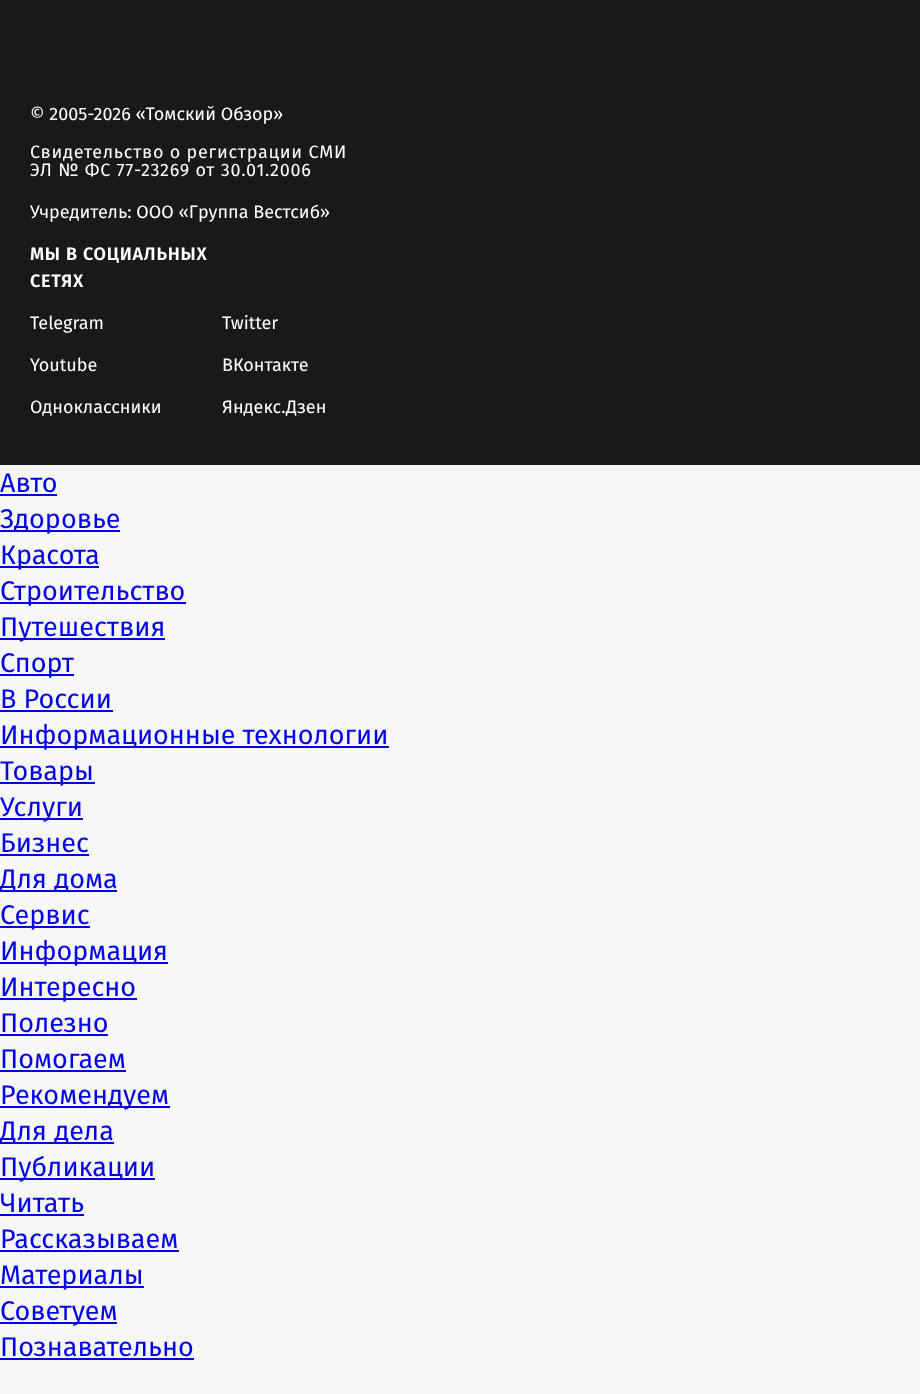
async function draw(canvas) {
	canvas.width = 920;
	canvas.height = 1394;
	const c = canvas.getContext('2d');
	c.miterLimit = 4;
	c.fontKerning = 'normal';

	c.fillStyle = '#f7f7f7';
	c.fillRect(0, 0, 920, 1394);
	c.fillStyle = '#1a1917';
	c.fillRect(0, 0, 920, 465);
	c.font = '18px Fira Sans';
	c.fillStyle = '#fff';
	c.fillText('© 2005-2026 «Томский Обзор»', 30, 120);
	c.letterSpacing = '0.75px';
	c.fillText('Свидетельство о регистрации СМИ', 30, 158);
	c.fillText('ЭЛ № ФС 77-23269 от 30.01.2006', 30, 176);
	c.letterSpacing = '0px';
	c.fillText('Учредитель: ООО «Группа Вестсиб»', 30, 218);
	c.letterSpacing = '0.75px';
	c.font = '600 18px Fira Sans';
	c.fillText('МЫ В СОЦИАЛЬНЫХ', 30, 260);
	c.fillText('СЕТЯХ', 30, 287);
	c.letterSpacing = '0px';
	c.font = '18px Fira Sans';
	for (const [text, x, y] of [
		['Telegram', 30, 329],
		['Twitter', 222, 329],
		['Youtube', 30, 371],
		['ВКонтакте', 222, 371],
		['Одноклассники', 30, 413],
		['Яндекс.Дзен', 222, 413],
	]) {
		c.fillText(text, x, y);
	}
	c.font = '27px Fira Sans';
	c.fillStyle = '#00e';
	c.fillText('Авто', 0, 492);
	c.fillRect(0, 494, 57, 2);
	c.fillRect(0, 530, 120, 2);
	c.fillText('Здоровье', 0, 528);
	c.fillRect(0, 566, 99, 2);
	c.fillText('Красота', 0, 564);
	c.fillRect(0, 602, 186, 2);
	c.fillText('Строительство', 0, 600);
	c.fillRect(0, 638, 165, 2);
	c.fillText('Путешествия', 0, 636);
	c.fillRect(0, 674, 74, 2);
	c.fillText('Спорт', 0, 672);
	c.fillText('В России', 0, 708);
	c.fillRect(0, 710, 113, 2);
	c.fillRect(0, 746, 389, 2);
	c.fillText('Информационные технологии', 0, 744);
	c.fillRect(0, 782, 95, 2);
	c.fillText('Товары', 0, 780);
	c.fillRect(0, 818, 83, 2);
	c.fillText('Услуги', 0, 816);
	c.fillText('Бизнес', 0, 852);
	c.fillRect(0, 854, 89, 2);
	c.fillRect(0, 890, 117, 2);
	c.fillText('Для дома', 0, 888);
	c.fillRect(0, 926, 90, 2);
	c.fillText('Сервис', 0, 924);
	c.fillRect(0, 962, 168, 2);
	c.fillText('Информация', 0, 960);
	c.fillRect(0, 998, 137, 2);
	c.fillText('Интересно', 0, 996);
	c.fillText('Полезно', 0, 1032);
	c.fillRect(0, 1034, 108, 2);
	c.fillText('Помогаем', 0, 1068);
	c.fillRect(0, 1070, 126, 2);
	c.fillRect(0, 1106, 170, 2);
	c.fillText('Рекомендуем', 0, 1104);
	c.fillRect(0, 1142, 114, 2);
	c.fillText('Для дела', 0, 1140);
	c.fillRect(0, 1178, 155, 2);
	c.fillText('Публикации', 0, 1176);
	c.fillText('Читать', 0, 1212);
	c.fillRect(0, 1214, 84, 2);
	c.fillText('Рассказываем', 0, 1248);
	c.fillRect(0, 1250, 179, 2);
	c.fillRect(0, 1286, 144, 2);
	c.fillText('Материалы', 0, 1284);
	c.fillRect(0, 1322, 117, 2);
	c.fillText('Советуем', 0, 1320);
	c.fillText('Познавательно', 0, 1356);
	c.fillRect(0, 1358, 194, 2);
}

draw(document.querySelector('canvas'));
